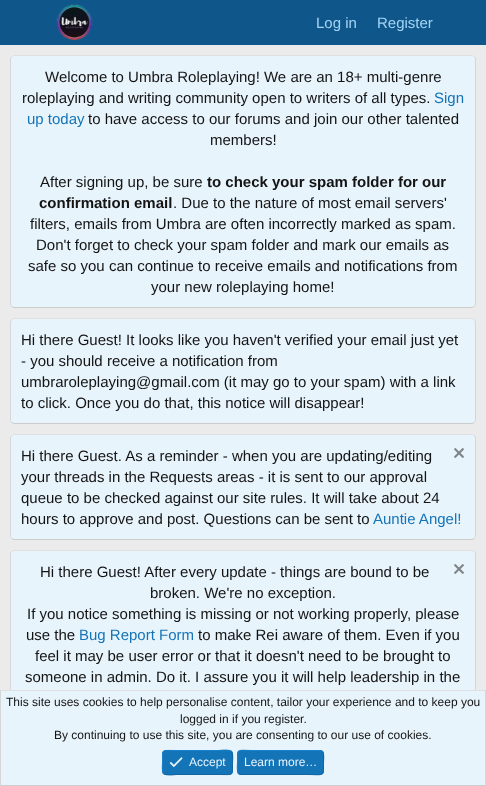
async function draw(canvas) {
	canvas.width = 486;
	canvas.height = 786;
	const c = canvas.getContext('2d');
	c.miterLimit = 4;
	c.fontKerning = 'normal';
	async function loadImage(src) {
		const img = new Image();
		img.src = src;
		await img.decode();
		return img;
	}

	c.fillStyle = '#ebebeb';
	c.fillRect(0, 0, 486, 786);
	c.fillStyle = '#0f578a';
	c.fillRect(0, 0, 486, 45);
	c.drawImage(await loadImage('img1.png'), 56, 4, 37, 37);
	c.font = '15px Liberation Sans';
	c.fillStyle = '#a3d4f5';
	c.fillText('Log in', 316, 28);
	c.fillText('Register', 377, 28);
	c.fillStyle = '#e8f4fc';
	c.beginPath();
	c.roundRect(10, 55, 466, 253, 4);
	c.fill();
	c.beginPath();
	c.moveTo(11.5, 56.5);
	c.lineTo(14, 55.5);
	c.lineTo(472, 55.5);
	c.lineTo(474.5, 56.5);
	c.strokeStyle = '#e0e0e0';
	c.stroke();
	c.beginPath();
	c.moveTo(474.5, 56.5);
	c.bezierCurveTo(475, 57, 475.5, 58, 475.5, 59);
	c.lineTo(475.5, 304);
	c.bezierCurveTo(475.5, 305, 475, 306, 474.5, 306.5);
	c.strokeStyle = '#d6d6d6';
	c.stroke();
	c.beginPath();
	c.moveTo(474.5, 306.5);
	c.lineTo(472, 307.5);
	c.lineTo(14, 307.5);
	c.lineTo(11.5, 306.5);
	c.strokeStyle = '#ccc';
	c.stroke();
	c.beginPath();
	c.moveTo(11.5, 306.5);
	c.bezierCurveTo(11, 306, 10.5, 305, 10.5, 304);
	c.lineTo(10.5, 59);
	c.bezierCurveTo(10.5, 58, 11, 57, 11.5, 56.5);
	c.strokeStyle = '#d6d6d6';
	c.stroke();
	c.fillStyle = '#141414';
	c.fillText('Welcome to Umbra Roleplaying! We are an 18+ multi-genre', 45, 82);
	c.fillText('roleplaying and writing community open to writers of all types.', 22, 103);
	c.fillStyle = '#1474b8';
	c.fillText('Sign', 434, 103);
	c.fillText('up today', 27, 124);
	c.fillStyle = '#141414';
	for (const [text, x, y] of [
		['to have access to our forums and join our other talented', 88, 124],
		['members!', 210, 145],
		['After signing up, be sure', 40, 187],
	]) {
		c.fillText(text, x, y);
	}
	c.font = 'bold 15px Liberation Sans';
	c.fillText('to check your spam folder for our', 207, 187);
	c.fillText('confirmation email', 39, 208);
	c.font = '15px Liberation Sans';
	for (const [text, x, y] of [
		['. Due to the nature of most email servers\'', 173, 208],
		['filters, emails from Umbra are often incorrectly marked as spam.', 30, 229],
		['Don\'t forget to check your spam folder and mark our emails as', 36, 250],
		['safe so you can continue to receive emails and notifications from', 28, 271],
		['your new roleplaying home!', 151, 292],
	]) {
		c.fillText(text, x, y);
	}
	c.fillStyle = '#e8f4fc';
	c.beginPath();
	c.roundRect(10, 318, 466, 106, 4);
	c.fill();
	c.beginPath();
	c.moveTo(11.5, 319.5);
	c.lineTo(14, 318.5);
	c.lineTo(472, 318.5);
	c.lineTo(474.5, 319.5);
	c.strokeStyle = '#e0e0e0';
	c.stroke();
	c.beginPath();
	c.moveTo(474.5, 319.5);
	c.lineTo(475.5, 322);
	c.lineTo(475.5, 420.5);
	c.lineTo(474.5, 422.5);
	c.strokeStyle = '#d6d6d6';
	c.stroke();
	c.beginPath();
	c.moveTo(474.5, 422.5);
	c.lineTo(472, 423.5);
	c.lineTo(14, 423.5);
	c.lineTo(11.5, 422.5);
	c.strokeStyle = '#ccc';
	c.stroke();
	c.beginPath();
	c.moveTo(11.5, 422.5);
	c.lineTo(10.5, 420.5);
	c.lineTo(10.5, 338.5);
	c.lineTo(10.5, 322);
	c.lineTo(11.5, 319.5);
	c.strokeStyle = '#d6d6d6';
	c.stroke();
	c.fillStyle = '#141414';
	for (const [text, x, y] of [
		['Hi there Guest! It looks like you haven\'t verified your email just yet', 21, 345],
		['- you should receive a notification from', 21, 366],
		['umbraroleplaying@gmail.com (it may go to your spam) with a link', 21, 387],
		['to click. Once you do that, this notice will disappear!', 21, 408],
	]) {
		c.fillText(text, x, y);
	}
	c.fillStyle = '#e8f4fc';
	c.beginPath();
	c.roundRect(10, 434, 466, 106, 4);
	c.fill();
	c.beginPath();
	c.moveTo(11.5, 435.5);
	c.lineTo(14, 434.5);
	c.lineTo(472, 434.5);
	c.lineTo(474.5, 435.5);
	c.strokeStyle = '#e0e0e0';
	c.stroke();
	c.beginPath();
	c.moveTo(474.5, 435.5);
	c.lineTo(475.5, 438);
	c.lineTo(475.5, 536.5);
	c.lineTo(474.5, 538.5);
	c.strokeStyle = '#d6d6d6';
	c.stroke();
	c.beginPath();
	c.moveTo(474.5, 538.5);
	c.lineTo(472, 539.5);
	c.lineTo(14, 539.5);
	c.lineTo(11.5, 538.5);
	c.strokeStyle = '#ccc';
	c.stroke();
	c.beginPath();
	c.moveTo(11.5, 538.5);
	c.lineTo(10.5, 536.5);
	c.lineTo(10.5, 454.5);
	c.lineTo(10.5, 438);
	c.lineTo(11.5, 435.5);
	c.strokeStyle = '#d6d6d6';
	c.stroke();
	c.fillStyle = '#141414';
	c.fillText('Hi there Guest. As a reminder - when you are updating/editing', 21, 461);
	c.drawImage(await loadImage('img2.png'), 454, 448, 10, 10);
	for (const [text, x, y] of [
		['your threads in the Requests areas - it is sent to our approval', 21, 482],
		['queue to be checked against our site rules. It will take about 24', 21, 503],
		['hours to approve and post. Questions can be sent to', 21, 524],
	]) {
		c.fillText(text, x, y);
	}
	c.fillStyle = '#1474b8';
	c.fillText('Auntie Angel!', 373, 524);
	c.fillStyle = '#e8f4fc';
	c.beginPath();
	c.roundRect(10, 550, 466, 169, 4);
	c.fill();
	c.beginPath();
	c.moveTo(11.5, 551.5);
	c.lineTo(14, 550.5);
	c.lineTo(472, 550.5);
	c.lineTo(474.5, 551.5);
	c.strokeStyle = '#e0e0e0';
	c.stroke();
	c.beginPath();
	c.moveTo(474.5, 551.5);
	c.bezierCurveTo(475, 552, 475.5, 553, 475.5, 554);
	c.lineTo(475.5, 715);
	c.bezierCurveTo(475.5, 716, 475, 717, 474.5, 717.5);
	c.strokeStyle = '#d6d6d6';
	c.stroke();
	c.beginPath();
	c.moveTo(11.5, 717.5);
	c.bezierCurveTo(11, 717, 10.5, 716, 10.5, 715);
	c.lineTo(10.5, 554);
	c.bezierCurveTo(10.5, 553, 11, 552, 11.5, 551.5);
	c.stroke();
	c.drawImage(await loadImage('img2.png'), 454, 564, 10, 10);
	c.fillStyle = '#141414';
	for (const [text, x, y] of [
		['Hi there Guest! After every update - things are bound to be', 40, 577],
		['broken. We\'re no exception.', 150, 598],
		['If you notice something is missing or not working properly, please', 27, 619],
		['use the', 26, 640],
	]) {
		c.fillText(text, x, y);
	}
	c.fillStyle = '#1474b8';
	c.fillText('Bug Report Form', 79, 640);
	c.fillStyle = '#141414';
	for (const [text, x, y] of [
		['to make Rei aware of them. Even if you', 198, 640],
		['feel it may be user error or that it doesn\'t need to be brought to', 35, 661],
		['someone in admin. Do it. I assure you it will help leadership in the', 25, 682],
	]) {
		c.fillText(text, x, y);
	}
	for (const [x, y, w, h, color] of [
		[1, 691, 484, 94, '#e8f4fc'],
		[0, 690, 486, 1, '#e0e0e0'],
		[485, 690, 1, 96, '#d6d6d6'],
		[0, 785, 486, 1, '#ccc'],
		[0, 690, 1, 96, '#d6d6d6'],
	]) {
		c.fillStyle = color;
		c.fillRect(x, y, w, h);
	}
	c.font = '12px Liberation Sans';
	c.fillStyle = '#141414';
	for (const [text, x, y] of [
		['This site uses cookies to help personalise content, tailor your experience and to keep you', 6, 706],
		['logged in if you register.', 180, 723],
		['By continuing to use this site, you are consenting to our use of cookies.', 54, 739],
	]) {
		c.fillText(text, x, y);
	}
	c.fillStyle = '#1474b8';
	c.beginPath();
	c.roundRect(162, 750, 71, 25, 4);
	c.fill();
	c.beginPath();
	c.moveTo(231.5, 751.5);
	c.bezierCurveTo(233.5, 754, 232.5, 760, 232.5, 762.5);
	c.bezierCurveTo(232.5, 776.5, 233.5, 774.5, 218.5, 774.5);
	c.lineTo(176.5, 774.5);
	c.bezierCurveTo(175.5, 774.5, 166, 776, 163.5, 773.5);
	c.strokeStyle = '#1265a1';
	c.stroke();
	c.beginPath();
	c.moveTo(163.5, 773.5);
	c.bezierCurveTo(161.5, 771, 162.5, 765, 162.5, 762.5);
	c.bezierCurveTo(162.5, 748.5, 161.5, 750.5, 176.5, 750.5);
	c.lineTo(218.5, 750.5);
	c.bezierCurveTo(219.5, 750.5, 229, 749, 231.5, 751.5);
	c.strokeStyle = '#1782cf';
	c.stroke();
	c.drawImage(await loadImage('img3.png'), 169, 757, 14, 11);
	c.fillStyle = '#e8f4fc';
	c.fillText('Accept', 189, 766);
	c.fillStyle = '#1474b8';
	c.beginPath();
	c.roundRect(237, 750, 87, 25, 4);
	c.fill();
	c.beginPath();
	c.moveTo(322.5, 751.5);
	c.bezierCurveTo(324.5, 754, 323.5, 760, 323.5, 762.5);
	c.bezierCurveTo(323.5, 777.5, 324, 774.5, 307, 774.5);
	c.lineTo(241, 774.5);
	c.lineTo(238.5, 773.5);
	c.strokeStyle = '#1265a1';
	c.stroke();
	c.beginPath();
	c.moveTo(238.5, 773.5);
	c.bezierCurveTo(236.5, 771, 237.5, 765, 237.5, 762.5);
	c.bezierCurveTo(237.5, 747.5, 237, 750.5, 254, 750.5);
	c.lineTo(320, 750.5);
	c.lineTo(322.5, 751.5);
	c.strokeStyle = '#1782cf';
	c.stroke();
	c.fillStyle = '#e8f4fc';
	c.fillText('Learn more…', 244, 766);
}

draw(document.querySelector('canvas'));
